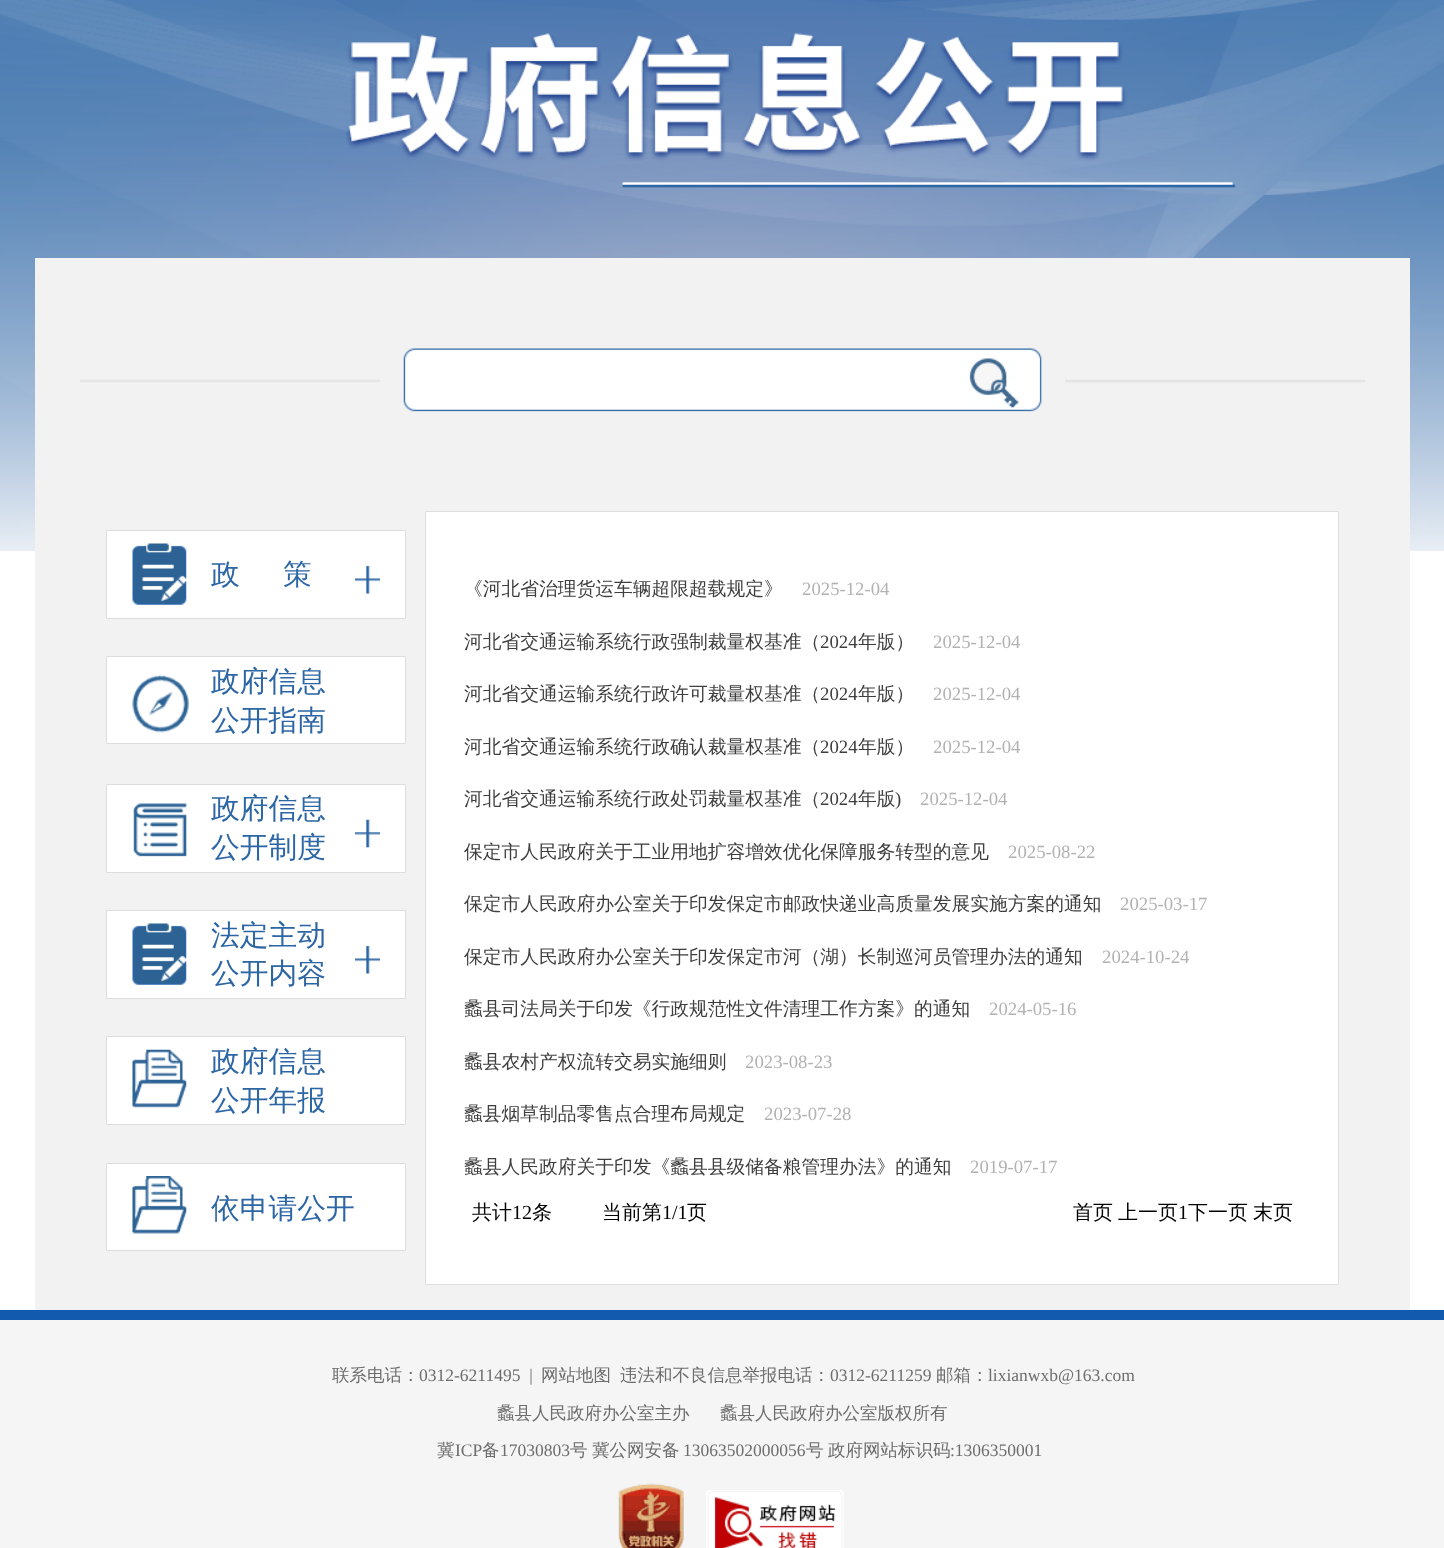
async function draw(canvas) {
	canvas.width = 1444;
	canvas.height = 1548;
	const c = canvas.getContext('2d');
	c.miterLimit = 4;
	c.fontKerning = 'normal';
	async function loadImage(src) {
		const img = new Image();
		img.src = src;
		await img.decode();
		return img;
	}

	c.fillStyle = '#fff';
	c.fillRect(0, 0, 1444, 1548);
	c.drawImage(await loadImage('img1.png'), 0, 0, 1444, 551);
	c.drawImage(await loadImage('img2.png'), 346, 33, 890, 155);
	c.fillStyle = '#f2f2f2';
	c.fillRect(35, 258, 1375, 1052);
	c.drawImage(await loadImage('img3.png'), 80, 348, 1285, 64);
	c.drawImage(await loadImage('img4.png'), 969, 358, 50, 50);
	c.fillStyle = '#fff';
	c.beginPath();
	c.rect(106.5, 530.5, 299, 88);
	c.fill();
	c.strokeStyle = '#ddd';
	c.stroke();
	c.drawImage(await loadImage('img5.png'), 132, 543, 55, 62);
	c.font = '500 28.75px WenQuanYi Zen Hei';
	c.fillStyle = '#2d66a5';
	c.fillText('政', 211, 584);
	c.fillText('策', 283, 584);
	c.drawImage(await loadImage('img6.png'), 355, 565, 25, 29);
	c.fillStyle = '#fff';
	c.beginPath();
	c.rect(106.5, 656.5, 299, 87);
	c.fill();
	c.stroke();
	c.drawImage(await loadImage('img7.png'), 132, 674, 57, 59);
	c.fillStyle = '#2d66a5';
	c.fillText('政府信息', 211, 691);
	c.fillText('公开指南', 211, 730);
	c.fillStyle = '#fff';
	c.beginPath();
	c.rect(106.5, 784.5, 299, 88);
	c.fill();
	c.stroke();
	c.drawImage(await loadImage('img8.png'), 133, 803, 54, 54);
	c.fillStyle = '#2d66a5';
	c.fillText('政府信息', 211, 818);
	c.fillText('公开制度', 211, 857);
	c.drawImage(await loadImage('img9.png'), 355, 819, 25, 29);
	c.fillStyle = '#fff';
	c.beginPath();
	c.rect(106.5, 910.5, 299, 88);
	c.fill();
	c.stroke();
	c.drawImage(await loadImage('img10.png'), 132, 923, 55, 62);
	c.fillStyle = '#2d66a5';
	c.fillText('法定主动', 211, 945);
	c.fillText('公开内容', 211, 983);
	c.drawImage(await loadImage('img6.png'), 355, 945, 25, 29);
	c.fillStyle = '#fff';
	c.beginPath();
	c.rect(106.5, 1036.5, 299, 88);
	c.fill();
	c.stroke();
	c.drawImage(await loadImage('img11.png'), 132, 1049, 55, 59);
	c.fillStyle = '#2d66a5';
	c.fillText('政府信息', 211, 1071);
	c.fillText('公开年报', 211, 1110);
	c.fillStyle = '#fff';
	c.beginPath();
	c.rect(106.5, 1163.5, 299, 87);
	c.fill();
	c.stroke();
	c.drawImage(await loadImage('img12.png'), 132, 1176, 55, 58);
	c.fillStyle = '#2d66a5';
	c.fillText('依申请公开', 211, 1218);
	c.fillStyle = '#fff';
	c.beginPath();
	c.rect(425.5, 511.5, 913, 773);
	c.fill();
	c.strokeStyle = '#dfdfdf';
	c.stroke();
	c.font = '500 18.75px WenQuanYi Zen Hei';
	c.fillStyle = '#3e3e3e';
	c.fillText('《河北省治理货运车辆超限超载规定》', 464, 595);
	c.font = '18.75px Liberation Serif';
	c.fillStyle = '#b2b2b2';
	c.fillText('2025-12-04', 802, 595);
	c.font = '500 18.75px WenQuanYi Zen Hei';
	c.fillStyle = '#3e3e3e';
	c.fillText('河北省交通运输系统行政强制裁量权基准（', 464, 648);
	c.font = '18.75px Liberation Serif';
	c.fillText('2024', 820, 648);
	c.font = '500 18.75px WenQuanYi Zen Hei';
	c.fillText('年版）', 858, 648);
	c.font = '18.75px Liberation Serif';
	c.fillStyle = '#b2b2b2';
	c.fillText('2025-12-04', 933, 648);
	c.font = '500 18.75px WenQuanYi Zen Hei';
	c.fillStyle = '#3e3e3e';
	c.fillText('河北省交通运输系统行政许可裁量权基准（', 464, 700);
	c.font = '18.75px Liberation Serif';
	c.fillText('2024', 820, 700);
	c.font = '500 18.75px WenQuanYi Zen Hei';
	c.fillText('年版）', 858, 700);
	c.font = '18.75px Liberation Serif';
	c.fillStyle = '#b2b2b2';
	c.fillText('2025-12-04', 933, 700);
	c.font = '500 18.75px WenQuanYi Zen Hei';
	c.fillStyle = '#3e3e3e';
	c.fillText('河北省交通运输系统行政确认裁量权基准（', 464, 753);
	c.font = '18.75px Liberation Serif';
	c.fillText('2024', 820, 753);
	c.font = '500 18.75px WenQuanYi Zen Hei';
	c.fillText('年版）', 858, 753);
	c.font = '18.75px Liberation Serif';
	c.fillStyle = '#b2b2b2';
	c.fillText('2025-12-04', 933, 753);
	c.font = '500 18.75px WenQuanYi Zen Hei';
	c.fillStyle = '#3e3e3e';
	c.fillText('河北省交通运输系统行政处罚裁量权基准（', 464, 805);
	c.font = '18.75px Liberation Serif';
	c.fillText('2024', 820, 805);
	c.font = '500 18.75px WenQuanYi Zen Hei';
	c.fillText('年版', 858, 805);
	c.font = '18.75px Liberation Serif';
	c.fillText(')', 895, 805);
	c.fillStyle = '#b2b2b2';
	c.fillText('2025-12-04', 920, 805);
	c.font = '500 18.75px WenQuanYi Zen Hei';
	c.fillStyle = '#3e3e3e';
	c.fillText('保定市人民政府关于工业用地扩容增效优化保障服务转型的意见', 464, 858);
	c.font = '18.75px Liberation Serif';
	c.fillStyle = '#b2b2b2';
	c.fillText('2025-08-22', 1008, 858);
	c.font = '500 18.75px WenQuanYi Zen Hei';
	c.fillStyle = '#3e3e3e';
	c.fillText('保定市人民政府办公室关于印发保定市邮政快递业高质量发展实施方案的通知', 464, 910);
	c.font = '18.75px Liberation Serif';
	c.fillStyle = '#b2b2b2';
	c.fillText('2025-03-17', 1120, 910);
	c.font = '500 18.75px WenQuanYi Zen Hei';
	c.fillStyle = '#3e3e3e';
	c.fillText('保定市人民政府办公室关于印发保定市河（湖）长制巡河员管理办法的通知', 464, 963);
	c.font = '18.75px Liberation Serif';
	c.fillStyle = '#b2b2b2';
	c.fillText('2024-10-24', 1102, 963);
	c.font = '500 18.75px WenQuanYi Zen Hei';
	c.fillStyle = '#3e3e3e';
	c.fillText('蠡县司法局关于印发《行政规范性文件清理工作方案》的通知', 464, 1015);
	c.font = '18.75px Liberation Serif';
	c.fillStyle = '#b2b2b2';
	c.fillText('2024-05-16', 989, 1015);
	c.font = '500 18.75px WenQuanYi Zen Hei';
	c.fillStyle = '#3e3e3e';
	c.fillText('蠡县农村产权流转交易实施细则', 464, 1068);
	c.font = '18.75px Liberation Serif';
	c.fillStyle = '#b2b2b2';
	c.fillText('2023-08-23', 745, 1068);
	c.font = '500 18.75px WenQuanYi Zen Hei';
	c.fillStyle = '#3e3e3e';
	c.fillText('蠡县烟草制品零售点合理布局规定', 464, 1120);
	c.font = '18.75px Liberation Serif';
	c.fillStyle = '#b2b2b2';
	c.fillText('2023-07-28', 764, 1120);
	c.font = '500 18.75px WenQuanYi Zen Hei';
	c.fillStyle = '#3e3e3e';
	c.fillText('蠡县人民政府关于印发《蠡县县级储备粮管理办法》的通知', 464, 1173);
	c.font = '18.75px Liberation Serif';
	c.fillStyle = '#b2b2b2';
	c.fillText('2019-07-17', 970, 1173);
	c.font = '500 20px WenQuanYi Zen Hei';
	c.fillStyle = '#000';
	c.fillText('共计', 472, 1219);
	c.font = '20px Liberation Serif';
	c.fillText('12', 512, 1219);
	c.font = '500 20px WenQuanYi Zen Hei';
	c.fillText('条', 532, 1219);
	c.fillText('当前第', 602, 1219);
	c.font = '20px Liberation Serif';
	c.fillText('1/1', 662, 1219);
	c.font = '500 20px WenQuanYi Zen Hei';
	c.fillText('页', 687, 1219);
	c.wordSpacing = '-1px';
	c.fillText('首页 上一页', 1073, 1219);
	c.wordSpacing = '0px';
	c.font = '20px Liberation Serif';
	c.fillText('1', 1178, 1219);
	c.wordSpacing = '-1px';
	c.font = '500 20px WenQuanYi Zen Hei';
	c.fillText('下一页 末页', 1188, 1219);
	c.fillStyle = '#f5f5f5';
	c.fillRect(0, 1320, 1444, 228);
	c.fillStyle = '#125aae';
	c.fillRect(0, 1310, 1444, 10);
	c.wordSpacing = '0px';
	c.font = '500 17.5px WenQuanYi Zen Hei';
	c.fillStyle = '#6d6d6d';
	c.fillText('联系电话：', 332, 1381);
	c.font = '17.5px Liberation Serif';
	c.fillText('0312-6211495  |', 419, 1381);
	c.font = '500 17.5px WenQuanYi Zen Hei';
	c.fillText('网站地图', 541, 1381);
	c.fillText('违法和不良信息举报电话：', 620, 1381);
	c.font = '17.5px Liberation Serif';
	c.fillText('0312-6211259', 830, 1381);
	c.font = '500 17.5px WenQuanYi Zen Hei';
	c.fillText('邮箱：', 936, 1381);
	c.font = '17.5px Liberation Serif';
	c.fillText('lixianwxb@163.com', 988, 1381);
	c.font = '500 17.5px WenQuanYi Zen Hei';
	for (const [text, x, y] of [
		['蠡县人民政府办公室主办', 497, 1419],
		['蠡县人民政府办公室版权所有', 720, 1419],
		['冀', 437, 1456],
	]) {
		c.fillText(text, x, y);
	}
	c.font = '17.5px Liberation Serif';
	c.fillText('ICP', 455, 1456);
	c.font = '500 17.5px WenQuanYi Zen Hei';
	c.fillText('备', 482, 1456);
	c.font = '17.5px Liberation Serif';
	c.fillText('17030803', 500, 1456);
	c.font = '500 17.5px WenQuanYi Zen Hei';
	c.fillText('号', 570, 1456);
	c.fillText('冀公网安备', 592, 1456);
	c.font = '17.5px Liberation Serif';
	c.fillText('13063502000056', 683, 1456);
	c.font = '500 17.5px WenQuanYi Zen Hei';
	c.fillText('号', 806, 1456);
	c.fillText('政府网站标识码', 828, 1456);
	c.font = '17.5px Liberation Serif';
	c.fillText(':1306350001', 950, 1456);
	c.drawImage(await loadImage('img13.png'), 618, 1483, 66, 65);
	c.drawImage(await loadImage('img14.png'), 706, 1490, 138, 58);
}

draw(document.querySelector('canvas'));
